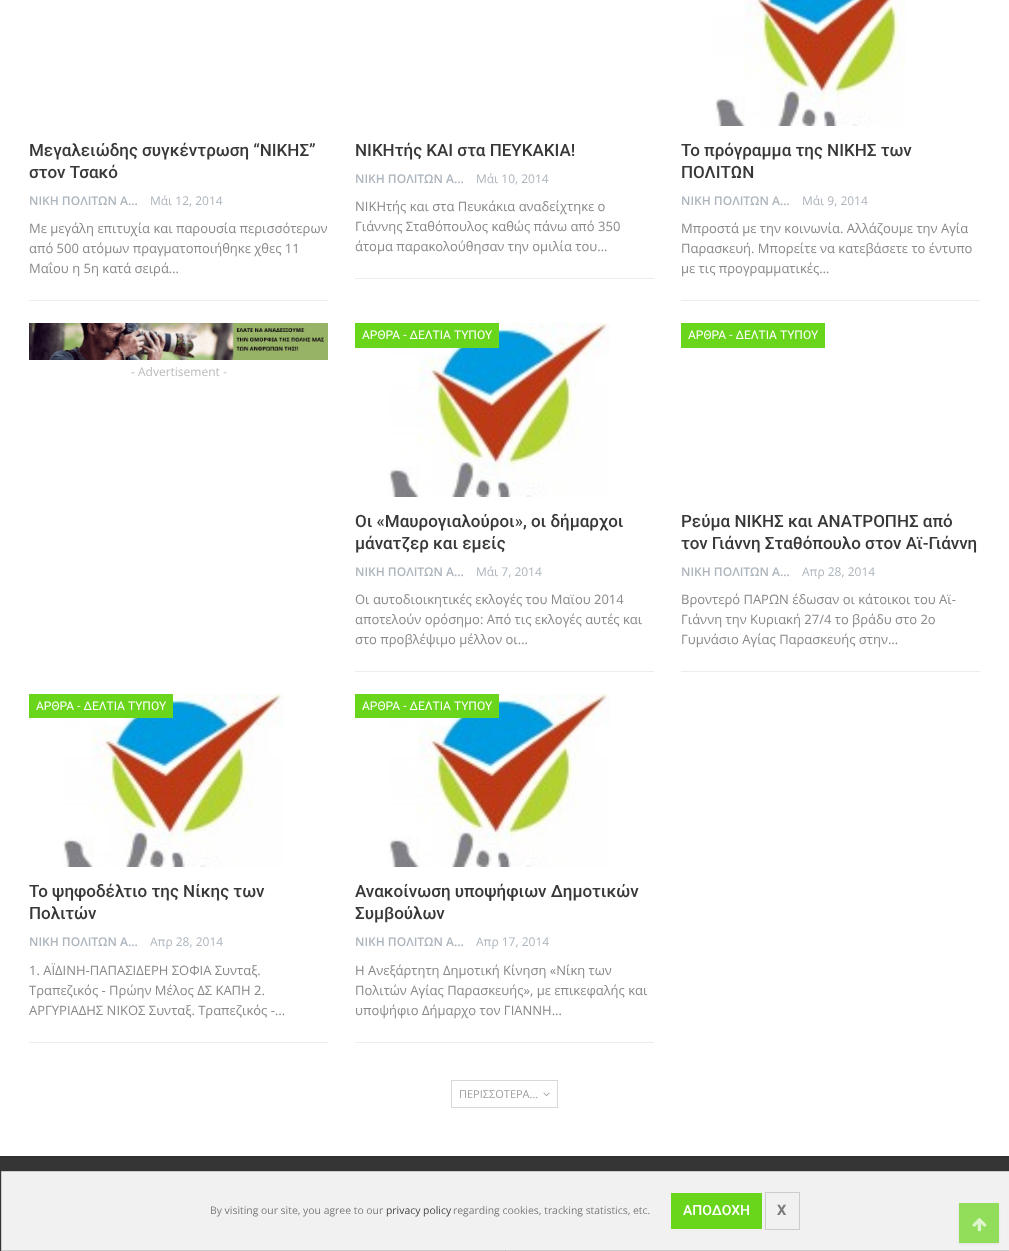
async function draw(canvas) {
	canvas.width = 1009;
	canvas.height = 1251;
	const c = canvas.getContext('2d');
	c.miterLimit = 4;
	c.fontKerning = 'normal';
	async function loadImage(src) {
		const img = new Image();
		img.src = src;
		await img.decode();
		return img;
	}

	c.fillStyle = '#353535';
	c.fillRect(0, 0, 1009, 1251);
	c.fillStyle = '#00000045';
	c.filter = 'blur(1px)';
	c.beginPath();
	c.rect(0, -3, 1009, 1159);
	c.fill();
	c.filter = 'none';
	c.fillStyle = '#fff';
	c.fillRect(0, 0, 1009, 1156);
	c.font = '500 17px Roboto';
	c.fillStyle = '#383838';
	c.fillText('Μεγαλειώδης συγκέντρωση “ΝΙΚΗΣ”', 29, 156);
	c.fillText('στον Τσακό', 29, 178);
	c.font = '600 12px Open Sans';
	c.fillStyle = '#adb5bd';
	c.fillText('ΝΙΚΗ ΠΟΛΙΤΩΝ Α...', 29, 205);
	c.font = '12px Open Sans';
	c.fillText('Μάι 12, 2014', 150, 205);
	c.fillStyle = '#ededed';
	c.fillRect(29, 300, 299, 1);
	c.font = '13px Open Sans';
	c.fillStyle = '#888';
	for (const [text, x, y] of [
		['Με μεγάλη επιτυχία και παρουσία περισσότερων', 29, 233],
		['από 500 ατόμων πραγματοποιήθηκε χθες 11', 29, 253],
		['Μαΐου η 5η κατά σειρά…', 29, 273],
	]) {
		c.fillText(text, x, y);
	}
	c.font = '500 17px Roboto';
	c.fillStyle = '#383838';
	c.fillText('ΝΙΚΗτής ΚΑΙ στα ΠΕΥΚΑΚΙΑ!', 355, 156);
	c.font = '600 12px Open Sans';
	c.fillStyle = '#adb5bd';
	c.fillText('ΝΙΚΗ ΠΟΛΙΤΩΝ Α...', 355, 183);
	c.font = '12px Open Sans';
	c.fillText('Μάι 10, 2014', 476, 183);
	c.fillStyle = '#ededed';
	c.fillRect(355, 278, 299, 1);
	c.font = '13px Open Sans';
	c.fillStyle = '#888';
	for (const [text, x, y] of [
		['ΝΙΚΗτής και στα Πευκάκια αναδείχτηκε ο', 355, 211],
		['Γιάννης Σταθόπουλος καθώς πάνω από 350', 355, 231],
		['άτομα παρακολούθησαν την ομιλία του…', 355, 251],
	]) {
		c.fillText(text, x, y);
	}
	c.drawImage(await loadImage('img1.png'), 714, 0, 192, 126);
	c.font = '500 17px Roboto';
	c.fillStyle = '#383838';
	c.fillText('Το πρόγραμμα της ΝΙΚΗΣ των', 681, 156);
	c.fillText('ΠΟΛΙΤΩΝ', 681, 178);
	c.font = '600 12px Open Sans';
	c.fillStyle = '#adb5bd';
	c.fillText('ΝΙΚΗ ΠΟΛΙΤΩΝ Α...', 681, 205);
	c.font = '12px Open Sans';
	c.fillText('Μάι 9, 2014', 802, 205);
	c.fillStyle = '#ededed';
	c.fillRect(681, 300, 299, 1);
	c.font = '13px Open Sans';
	c.fillStyle = '#888';
	for (const [text, x, y] of [
		['Μπροστά με την κοινωνία. Αλλάζουμε την Αγία', 681, 233],
		['Παρασκευή. Μπορείτε να κατεβάσετε το έντυπο', 681, 253],
		['με τις προγραμματικές…', 681, 273],
	]) {
		c.fillText(text, x, y);
	}
	c.drawImage(await loadImage('img2.png'), 29, 323, 299, 37);
	c.font = '12px Open Sans';
	c.fillStyle = '#bbb';
	c.fillText('- Advertisement -', 131, 376);
	c.drawImage(await loadImage('img3.png'), 388, 323, 222, 174);
	c.fillStyle = '#69d61b';
	c.fillRect(355, 323, 144, 25);
	c.font = '12px Roboto';
	c.fillStyle = '#fff';
	c.fillText('ΑΡΘΡΑ - ΔΕΛΤΙΑ ΤΥΠΟΥ', 362, 339);
	c.font = '500 17px Roboto';
	c.fillStyle = '#383838';
	c.fillText('Οι «Μαυρογιαλούροι», οι δήμαρχοι', 355, 527);
	c.fillText('μάνατζερ και εμείς', 355, 549);
	c.font = '600 12px Open Sans';
	c.fillStyle = '#adb5bd';
	c.fillText('ΝΙΚΗ ΠΟΛΙΤΩΝ Α...', 355, 576);
	c.font = '12px Open Sans';
	c.fillText('Μάι 7, 2014', 476, 576);
	c.fillStyle = '#ededed';
	c.fillRect(355, 671, 299, 1);
	c.font = '13px Open Sans';
	c.fillStyle = '#888';
	for (const [text, x, y] of [
		['Οι αυτοδιοικητικές εκλογές του Μαϊου 2014', 355, 604],
		['αποτελούν ορόσημο: Από τις εκλογές αυτές και', 355, 624],
		['στο προβλέψιμο μέλλον οι…', 355, 644],
	]) {
		c.fillText(text, x, y);
	}
	c.fillStyle = '#69d61b';
	c.fillRect(681, 323, 144, 25);
	c.font = '12px Roboto';
	c.fillStyle = '#fff';
	c.fillText('ΑΡΘΡΑ - ΔΕΛΤΙΑ ΤΥΠΟΥ', 688, 339);
	c.font = '500 17px Roboto';
	c.fillStyle = '#383838';
	c.fillText('Ρεύμα ΝΙΚΗΣ και ΑΝΑΤΡΟΠΗΣ από', 681, 527);
	c.fillText('τον Γιάννη Σταθόπουλο στον Αϊ-Γιάννη', 681, 549);
	c.font = '600 12px Open Sans';
	c.fillStyle = '#adb5bd';
	c.fillText('ΝΙΚΗ ΠΟΛΙΤΩΝ Α...', 681, 576);
	c.font = '12px Open Sans';
	c.fillText('Απρ 28, 2014', 802, 576);
	c.fillStyle = '#ededed';
	c.fillRect(681, 671, 299, 1);
	c.font = '13px Open Sans';
	c.fillStyle = '#888';
	for (const [text, x, y] of [
		['Βροντερό ΠΑΡΩΝ έδωσαν οι κάτοικοι του Αϊ-', 681, 604],
		['Γιάννη την Κυριακή 27/4 το βράδυ στο 2ο', 681, 624],
		['Γυμνάσιο Αγίας Παρασκευής στην…', 681, 644],
	]) {
		c.fillText(text, x, y);
	}
	c.drawImage(await loadImage('img4.png'), 62, 694, 222, 173);
	c.fillStyle = '#69d61b';
	c.fillRect(29, 694, 144, 24);
	c.font = '12px Roboto';
	c.fillStyle = '#fff';
	c.fillText('ΑΡΘΡΑ - ΔΕΛΤΙΑ ΤΥΠΟΥ', 36, 710);
	c.font = '500 17px Roboto';
	c.fillStyle = '#383838';
	c.fillText('Το ψηφοδέλτιο της Νίκης των', 29, 897);
	c.fillText('Πολιτών', 29, 919);
	c.font = '600 12px Open Sans';
	c.fillStyle = '#adb5bd';
	c.fillText('ΝΙΚΗ ΠΟΛΙΤΩΝ Α...', 29, 946);
	c.font = '12px Open Sans';
	c.fillText('Απρ 28, 2014', 150, 946);
	c.fillStyle = '#ededed';
	c.fillRect(29, 1042, 299, 1);
	c.font = '13px Open Sans';
	c.fillStyle = '#888';
	for (const [text, x, y] of [
		['1. ΑΪΔΙΝΗ-ΠΑΠΑΣΙΔΕΡΗ ΣΟΦΙΑ Συνταξ.', 29, 975],
		['Τραπεζικός - Πρώην Μέλος ΔΣ ΚΑΠΗ 2.', 29, 995],
		['ΑΡΓΥΡΙΑΔΗΣ ΝΙΚΟΣ Συνταξ. Τραπεζικός -…', 29, 1015],
	]) {
		c.fillText(text, x, y);
	}
	c.drawImage(await loadImage('img4.png'), 388, 694, 222, 173);
	c.fillStyle = '#69d61b';
	c.fillRect(355, 694, 144, 24);
	c.font = '12px Roboto';
	c.fillStyle = '#fff';
	c.fillText('ΑΡΘΡΑ - ΔΕΛΤΙΑ ΤΥΠΟΥ', 362, 710);
	c.font = '500 17px Roboto';
	c.fillStyle = '#383838';
	c.fillText('Ανακοίνωση υποψήφιων Δημοτικών', 355, 897);
	c.fillText('Συμβούλων', 355, 919);
	c.font = '600 12px Open Sans';
	c.fillStyle = '#adb5bd';
	c.fillText('ΝΙΚΗ ΠΟΛΙΤΩΝ Α...', 355, 946);
	c.font = '12px Open Sans';
	c.fillText('Απρ 17, 2014', 476, 946);
	c.fillStyle = '#ededed';
	c.fillRect(355, 1042, 299, 1);
	c.font = '13px Open Sans';
	c.fillStyle = '#888';
	for (const [text, x, y] of [
		['Η Ανεξάρτητη Δημοτική Κίνηση «Νίκη των', 355, 975],
		['Πολιτών Αγίας Παρασκευής», με επικεφαλής και', 355, 995],
		['υποψήφιο Δήμαρχο τον ΓΙΑΝΝΗ…', 355, 1015],
	]) {
		c.fillText(text, x, y);
	}
	c.strokeStyle = '#d8d8d8';
	c.strokeRect(451.5, 1080.5, 106, 27);
	c.font = '11px Open Sans';
	c.fillStyle = '#9e9e9e';
	c.fillText('ΠΕΡΙΣΣΟΤΕΡΑ...', 459, 1098);
	c.drawImage(await loadImage('img5.png'), 543, 1092, 7, 5);
	c.fillStyle = '#f1f1f1';
	c.beginPath();
	c.rect(1.5, 1171.5, 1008, 79);
	c.fill();
	c.strokeStyle = '#ccc';
	c.stroke();
	c.font = '10.4px Open Sans';
	c.fillStyle = '#7b7b7b';
	c.fillText('By visiting our site, you agree to our', 210, 1214);
	c.fillStyle = '#444';
	c.fillText('privacy policy', 386, 1214);
	c.fillStyle = '#7b7b7b';
	c.fillText('regarding cookies, tracking statistics, etc.', 453, 1214);
	c.fillStyle = '#69d61b';
	c.fillRect(671, 1193, 91, 36);
	c.font = '500 14px Roboto';
	c.fillStyle = '#fff';
	c.fillText('ΑΠΟΔΟΧΗ', 683, 1215);
	c.strokeRect(765.5, 1192.5, 34, 37);
	c.font = 'bold 14px Roboto';
	c.fillStyle = '#7b7b7b';
	c.fillText('X', 777, 1215);
	c.fillStyle = '#48484817';
	c.filter = 'blur(1px)';
	c.beginPath();
	c.rect(959, 1204, 40, 40);
	c.fill();
	c.filter = 'none';
	c.fillStyle = '#92de5b';
	c.fillRect(959, 1203, 40, 40);
	c.drawImage(await loadImage('img6.png'), 972, 1218, 15, 14);
}

draw(document.querySelector('canvas'));
